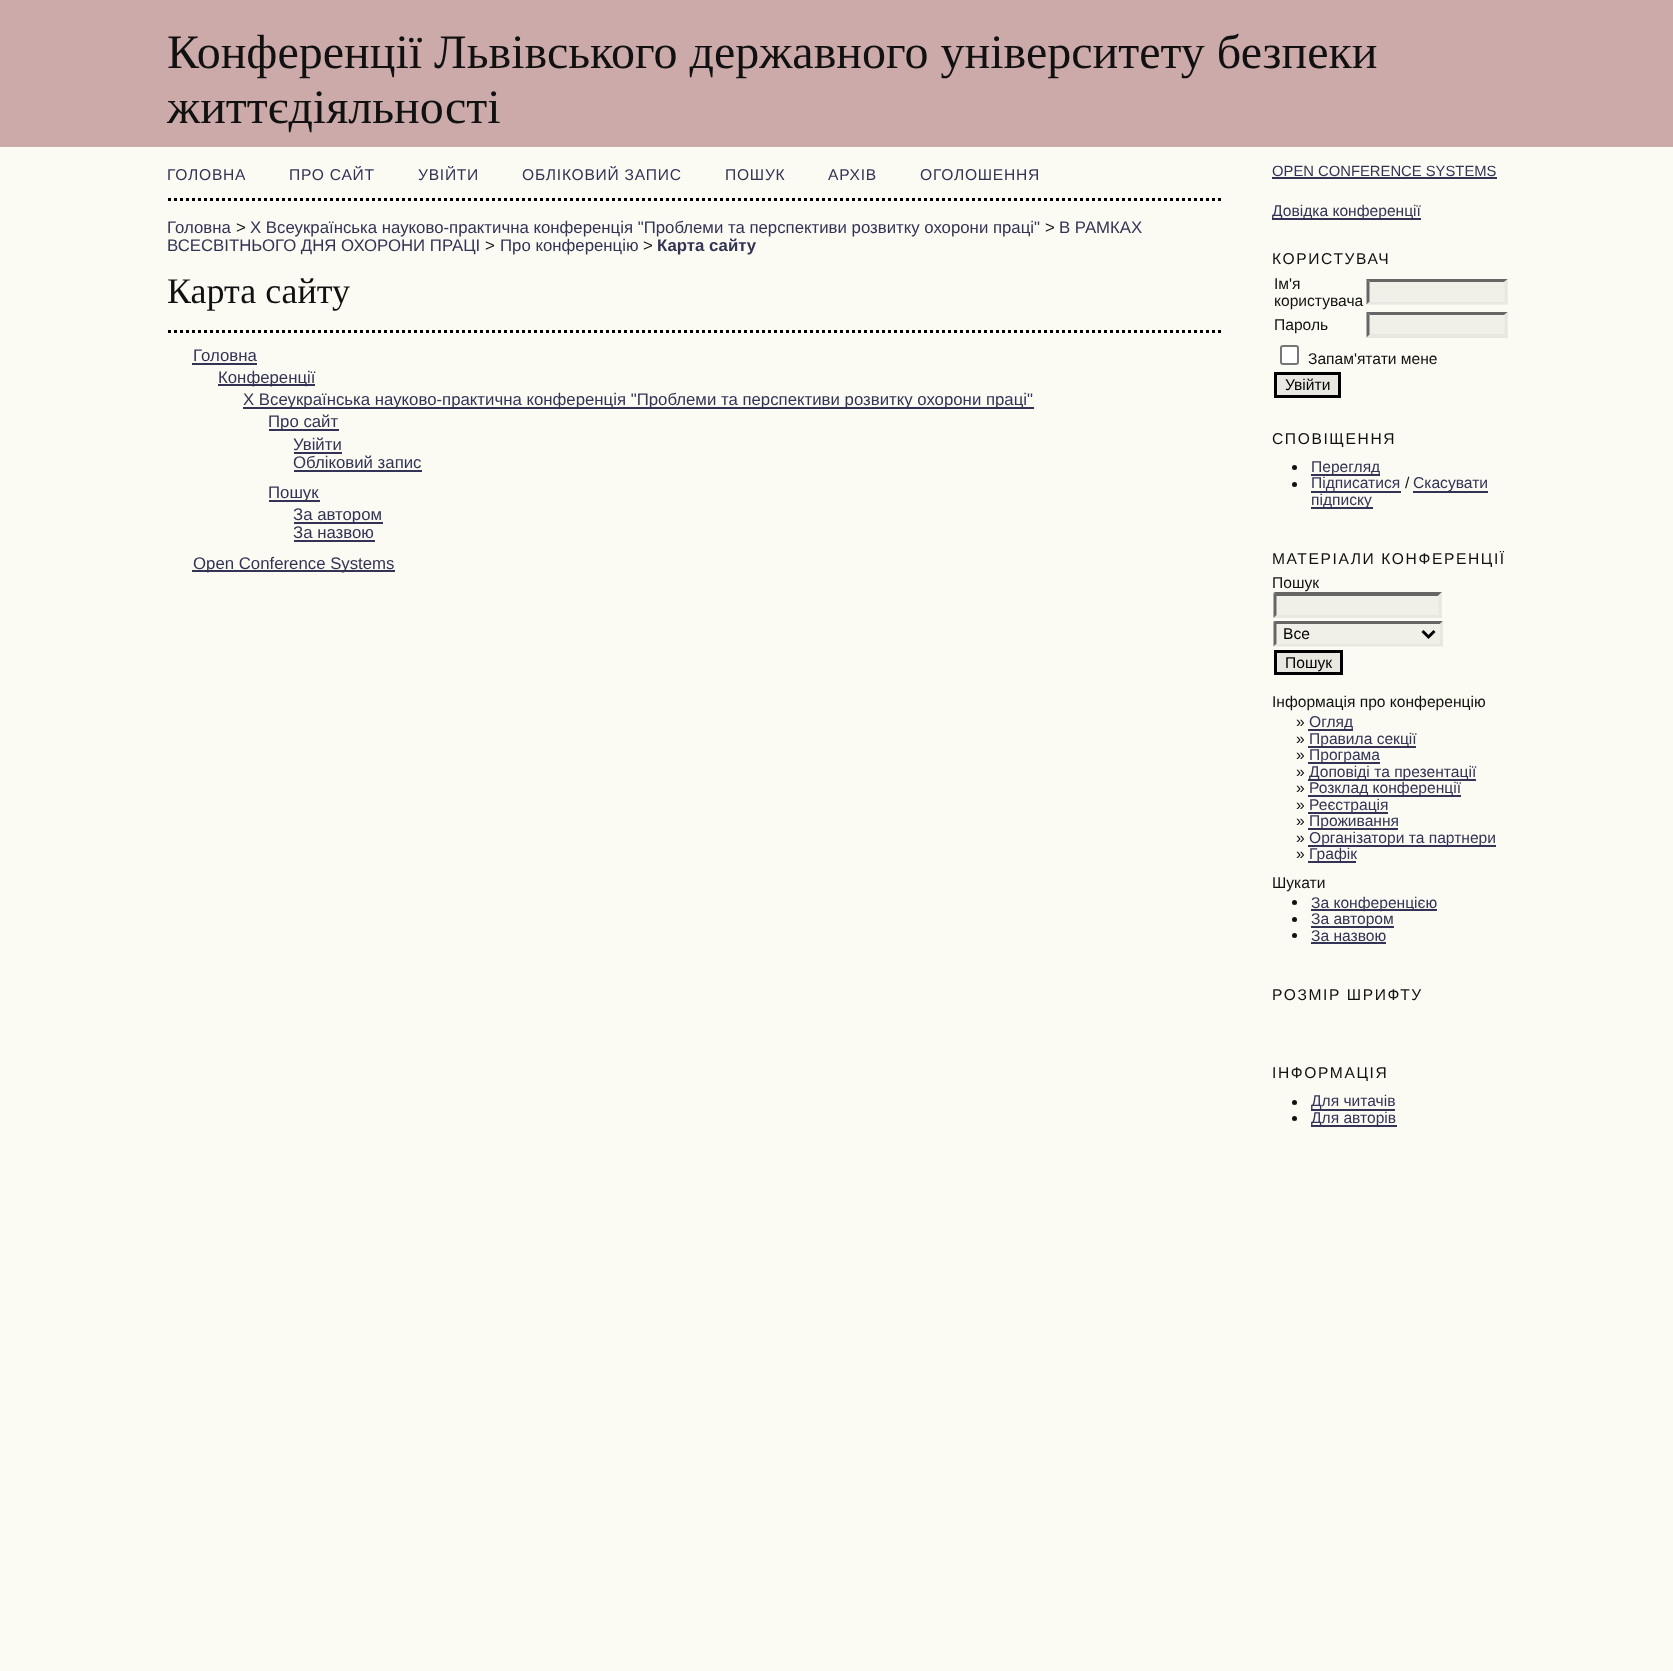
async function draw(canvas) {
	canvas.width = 1673;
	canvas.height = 1671;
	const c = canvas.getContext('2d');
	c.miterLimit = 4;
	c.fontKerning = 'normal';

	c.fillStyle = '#fbfbf3';
	c.fillRect(0, 0, 1673, 1671);
	c.fillStyle = '#caa';
	c.fillRect(0, 0, 1673, 147);
	c.font = '48px Liberation Serif';
	c.fillStyle = '#111';
	c.fillText('Конференції Львівського державного університету безпеки', 167, 68);
	c.fillText('життєдіяльності', 167, 123);
	c.beginPath();
	c.moveTo(168, 199.5);
	c.lineTo(1222.5, 199.5);
	c.strokeStyle = '#000';
	c.lineWidth = 3;
	c.setLineDash([3, 3]);
	c.stroke();
	c.letterSpacing = '0.75px';
	c.font = '15.6px Liberation Sans';
	c.fillStyle = '#335';
	for (const [text, x, y] of [
		['ГОЛОВНА', 167, 180],
		['ПРО САЙТ', 289, 180],
		['УВІЙТИ', 418, 180],
		['ОБЛІКОВИЙ ЗАПИС', 522, 180],
		['ПОШУК', 725, 180],
		['АРХІВ', 828, 180],
		['ОГОЛОШЕННЯ', 920, 180],
	]) {
		c.fillText(text, x, y);
	}
	c.letterSpacing = '0px';
	c.font = '16.8px Liberation Sans';
	c.fillText('Головна', 167, 233);
	c.fillStyle = '#111';
	c.fillText('>', 236, 233);
	c.fillStyle = '#335';
	c.fillText('X Всеукраїнська науково-практична конференція "Проблеми та перспективи розвитку охорони праці"', 250, 233);
	c.fillStyle = '#111';
	c.fillText('>', 1045, 233);
	c.fillStyle = '#335';
	c.fillText('В РАМКАХ', 1059, 233);
	c.fillText('ВСЕСВІТНЬОГО ДНЯ ОХОРОНИ ПРАЦІ', 167, 251);
	c.fillStyle = '#111';
	c.fillText('>', 485, 251);
	c.fillStyle = '#335';
	c.fillText('Про конференцію', 500, 251);
	c.fillStyle = '#111';
	c.fillText('>', 643, 251);
	c.font = 'bold 16.8px Liberation Sans';
	c.fillStyle = '#335';
	c.fillText('Карта сайту', 657, 251);
	c.font = '36px Liberation Serif';
	c.fillStyle = '#111';
	c.fillText('Карта сайту', 167, 303);
	c.beginPath();
	c.moveTo(168, 331.5);
	c.lineTo(1222.5, 331.5);
	c.stroke();
	c.font = '16.8px Liberation Sans';
	c.fillStyle = '#335';
	c.fillText('Головна', 193, 361);
	c.fillRect(192, 363, 65, 2);
	c.fillRect(218, 384, 97, 2);
	c.fillText('Конференції', 218, 383);
	c.fillRect(243, 407, 791, 2);
	c.fillText('X Всеукраїнська науково-практична конференція "Проблеми та перспективи розвитку охорони праці"', 243, 405);
	c.fillRect(269, 429, 70, 2);
	c.fillText('Про сайт', 268, 427);
	c.fillText('Увійти', 293, 450);
	c.fillRect(294, 452, 48, 2);
	c.fillText('Обліковий запис', 293, 468);
	c.fillRect(294, 470, 128, 2);
	c.fillRect(269, 500, 51, 2);
	c.fillText('Пошук', 268, 498);
	c.fillRect(294, 522, 89, 2);
	c.fillText('За автором', 293, 520);
	c.fillText('За назвою', 293, 538);
	c.fillRect(294, 540, 81, 2);
	c.fillRect(192, 570, 203, 2);
	c.fillText('Open Conference Systems', 193, 569);
	c.font = '14.8px Liberation Sans';
	c.fillText('OPEN CONFERENCE SYSTEMS', 1272, 176);
	c.fillRect(1272, 177, 225, 2);
	c.fillRect(1272, 218, 149, 2);
	c.font = '15.6px Liberation Sans';
	c.fillText('Довідка конференції', 1272, 216);
	c.letterSpacing = '1.6px';
	c.fillStyle = '#111';
	c.fillText('КОРИСТУВАЧ', 1272, 264);
	c.letterSpacing = '0px';
	c.fillText('Ім\'я', 1274, 289);
	c.fillText('користувача', 1274, 306);
	c.fillStyle = '#f0f0e8';
	c.fillRect(1367, 279, 141, 26);
	c.fillStyle = '#666';
	c.beginPath();
	c.moveTo(1366, 279);
	c.lineTo(1508, 279);
	c.lineTo(1504, 282);
	c.lineTo(1370, 282);
	c.closePath();
	c.fill();
	c.fillStyle = '#e8e8e1';
	c.beginPath();
	c.moveTo(1507.5, 279);
	c.lineTo(1507.5, 304.5);
	c.lineTo(1504.5, 301.5);
	c.lineTo(1504.5, 282);
	c.closePath();
	c.fill();
	c.beginPath();
	c.moveTo(1508, 304);
	c.lineTo(1366, 304);
	c.lineTo(1370, 302);
	c.lineTo(1504, 302);
	c.closePath();
	c.fill();
	c.fillStyle = '#666';
	c.beginPath();
	c.moveTo(1366.5, 304.5);
	c.lineTo(1366.5, 279);
	c.lineTo(1369.5, 282);
	c.lineTo(1369.5, 301.5);
	c.closePath();
	c.fill();
	c.fillStyle = '#111';
	c.fillText('Пароль', 1274, 330);
	c.fillStyle = '#f0f0e8';
	c.fillRect(1367, 312, 141, 26);
	c.fillStyle = '#666';
	c.beginPath();
	c.moveTo(1366, 312);
	c.lineTo(1508, 312);
	c.lineTo(1504, 315);
	c.lineTo(1370, 315);
	c.closePath();
	c.fill();
	c.fillStyle = '#e8e8e1';
	c.beginPath();
	c.moveTo(1507.5, 312);
	c.lineTo(1507.5, 337.5);
	c.lineTo(1504.5, 334.5);
	c.lineTo(1504.5, 315);
	c.closePath();
	c.fill();
	c.beginPath();
	c.moveTo(1508, 338);
	c.lineTo(1366, 338);
	c.lineTo(1370, 334);
	c.lineTo(1504, 334);
	c.closePath();
	c.fill();
	c.fillStyle = '#666';
	c.beginPath();
	c.moveTo(1366.5, 337.5);
	c.lineTo(1366.5, 312);
	c.lineTo(1369.5, 315);
	c.lineTo(1369.5, 334.5);
	c.closePath();
	c.fill();
	c.fillStyle = '#fff';
	c.beginPath();
	c.roundRect(1281, 346, 17, 18, 2);
	c.fill();
	c.strokeStyle = '#767676';
	c.lineWidth = 2;
	c.setLineDash([]);
	c.stroke();
	c.fillStyle = '#111';
	c.fillText('Запам\'ятати мене', 1308, 364);
	c.fillStyle = '#e8e8e1';
	c.beginPath();
	c.rect(1275.5, 373.5, 64, 23);
	c.fill();
	c.strokeStyle = '#000';
	c.lineWidth = 3;
	c.stroke();
	c.fillStyle = '#000';
	c.fillText('Увійти', 1285, 390);
	c.letterSpacing = '1.6px';
	c.fillStyle = '#111';
	c.fillText('СПОВІЩЕННЯ', 1272, 444);
	c.beginPath();
	c.arc(1294.5, 467.5, 2.5, 0, 2 * Math.PI);
	c.fill();
	c.fillStyle = '#335';
	c.fillRect(1311, 474, 69, 2);
	c.letterSpacing = '0px';
	c.fillText('Перегляд', 1311, 472);
	c.fillStyle = '#111';
	c.beginPath();
	c.arc(1294.5, 484.5, 2.5, 0, 2 * Math.PI);
	c.fill();
	c.fillStyle = '#335';
	c.fillRect(1311, 491, 90, 2);
	c.fillText('Підписатися', 1311, 488);
	c.fillStyle = '#111';
	c.fillText('/', 1405, 488);
	c.fillStyle = '#335';
	c.fillRect(1413, 491, 75, 2);
	c.fillText('Скасувати', 1413, 488);
	c.fillRect(1311, 507, 62, 2);
	c.fillText('підписку', 1311, 505);
	c.letterSpacing = '1.6px';
	c.fillStyle = '#111';
	c.fillText('МАТЕРІАЛИ КОНФЕРЕНЦІЇ', 1272, 564);
	c.letterSpacing = '0px';
	c.fillText('Пошук', 1272, 588);
	c.fillStyle = '#f0f0e8';
	c.fillRect(1274, 593, 168, 25);
	c.fillStyle = '#666';
	c.beginPath();
	c.moveTo(1274, 592);
	c.lineTo(1442, 592);
	c.lineTo(1438, 596);
	c.lineTo(1276, 596);
	c.closePath();
	c.fill();
	c.fillStyle = '#e8e8e1';
	c.beginPath();
	c.moveTo(1441.5, 592.5);
	c.lineTo(1441.5, 618);
	c.lineTo(1438.5, 615);
	c.lineTo(1438.5, 595.5);
	c.closePath();
	c.fill();
	c.beginPath();
	c.moveTo(1442, 618);
	c.lineTo(1274, 618);
	c.lineTo(1276, 615);
	c.lineTo(1438, 615);
	c.closePath();
	c.fill();
	c.fillStyle = '#666';
	c.beginPath();
	c.moveTo(1273.5, 618);
	c.lineTo(1273.5, 592.5);
	c.lineTo(1276.5, 595.5);
	c.lineTo(1276.5, 615);
	c.closePath();
	c.fill();
	c.fillStyle = '#f0f0e8';
	c.fillRect(1274, 621, 169, 26);
	c.fillStyle = '#666';
	c.beginPath();
	c.moveTo(1274, 621);
	c.lineTo(1443, 621);
	c.lineTo(1440, 624);
	c.lineTo(1276, 624);
	c.closePath();
	c.fill();
	c.fillStyle = '#e8e8e1';
	c.beginPath();
	c.moveTo(1443, 621);
	c.lineTo(1443, 646.5);
	c.lineTo(1440, 643.5);
	c.lineTo(1440, 624);
	c.closePath();
	c.fill();
	c.beginPath();
	c.moveTo(1443, 646);
	c.lineTo(1274, 646);
	c.lineTo(1276, 644);
	c.lineTo(1440, 644);
	c.closePath();
	c.fill();
	c.fillStyle = '#666';
	c.beginPath();
	c.moveTo(1273.5, 646.5);
	c.lineTo(1273.5, 621);
	c.lineTo(1276.5, 624);
	c.lineTo(1276.5, 643.5);
	c.closePath();
	c.fill();
	c.beginPath();
	c.moveTo(1422.5, 631);
	c.lineTo(1428.5, 637);
	c.lineTo(1434.5, 631);
	c.stroke();
	c.fillStyle = '#000';
	c.fillText('Все', 1283, 639);
	c.fillStyle = '#e8e8e1';
	c.beginPath();
	c.rect(1275.5, 651.5, 66, 22);
	c.fill();
	c.stroke();
	c.fillStyle = '#000';
	c.fillText('Пошук', 1285, 668);
	c.fillStyle = '#111';
	c.fillText('Інформація про конференцію', 1272, 707);
	c.fillText('»', 1296, 727);
	c.fillStyle = '#335';
	c.fillRect(1308, 729, 45, 2);
	c.fillText('Огляд', 1309, 727);
	c.fillStyle = '#111';
	c.fillText('»', 1296, 744);
	c.fillStyle = '#335';
	c.fillRect(1308, 746, 108, 2);
	c.fillText('Правила секції', 1309, 744);
	c.fillStyle = '#111';
	c.fillText('»', 1296, 760);
	c.fillStyle = '#335';
	c.fillRect(1308, 762, 72, 2);
	c.fillText('Програма', 1309, 760);
	c.fillStyle = '#111';
	c.fillText('»', 1296, 777);
	c.fillStyle = '#335';
	c.fillRect(1308, 779, 168, 2);
	c.fillText('Доповіді та презентації', 1309, 777);
	c.fillStyle = '#111';
	c.fillText('»', 1296, 793);
	c.fillStyle = '#335';
	c.fillRect(1308, 795, 153, 2);
	c.fillText('Розклад конференції', 1309, 793);
	c.fillStyle = '#111';
	c.fillText('»', 1296, 810);
	c.fillStyle = '#335';
	c.fillRect(1308, 812, 80, 2);
	c.fillText('Реєстрація', 1309, 810);
	c.fillStyle = '#111';
	c.fillText('»', 1296, 826);
	c.fillStyle = '#335';
	c.fillRect(1308, 828, 90, 2);
	c.fillText('Проживання', 1309, 826);
	c.fillStyle = '#111';
	c.fillText('»', 1296, 843);
	c.fillStyle = '#335';
	c.fillRect(1308, 845, 188, 2);
	c.fillText('Організатори та партнери', 1309, 843);
	c.fillStyle = '#111';
	c.fillText('»', 1296, 859);
	c.fillStyle = '#335';
	c.fillRect(1308, 861, 48, 2);
	c.fillText('Графік', 1309, 859);
	c.fillStyle = '#111';
	c.fillText('Шукати', 1272, 888);
	c.beginPath();
	c.arc(1294.5, 902.5, 2.5, 0, 2 * Math.PI);
	c.fill();
	c.fillStyle = '#335';
	c.fillRect(1311, 909, 126, 2);
	c.fillText('За конференцією', 1311, 908);
	c.fillStyle = '#111';
	c.beginPath();
	c.arc(1294.5, 919.5, 2.5, 0, 2 * Math.PI);
	c.fill();
	c.fillStyle = '#335';
	c.fillRect(1311, 926, 83, 2);
	c.fillText('За автором', 1311, 924);
	c.fillStyle = '#111';
	c.beginPath();
	c.arc(1294.5, 935.5, 2.5, 0, 2 * Math.PI);
	c.fill();
	c.fillStyle = '#335';
	c.fillText('За назвою', 1311, 941);
	c.fillRect(1311, 942, 75, 2);
	c.letterSpacing = '1.6px';
	c.fillStyle = '#111';
	c.fillText('РОЗМІР ШРИФТУ', 1272, 1000);
	c.fillText('ІНФОРМАЦІЯ', 1272, 1078);
	c.beginPath();
	c.arc(1294.5, 1102.5, 2.5, 0, 2 * Math.PI);
	c.fill();
	c.fillStyle = '#335';
	c.fillRect(1311, 1109, 84, 2);
	c.letterSpacing = '0px';
	c.fillText('Для читачів', 1311, 1106);
	c.fillStyle = '#111';
	c.beginPath();
	c.arc(1294.5, 1118.5, 2.5, 0, 2 * Math.PI);
	c.fill();
	c.fillStyle = '#335';
	c.fillRect(1311, 1125, 86, 2);
	c.fillText('Для авторів', 1311, 1123);
}

draw(document.querySelector('canvas'));
